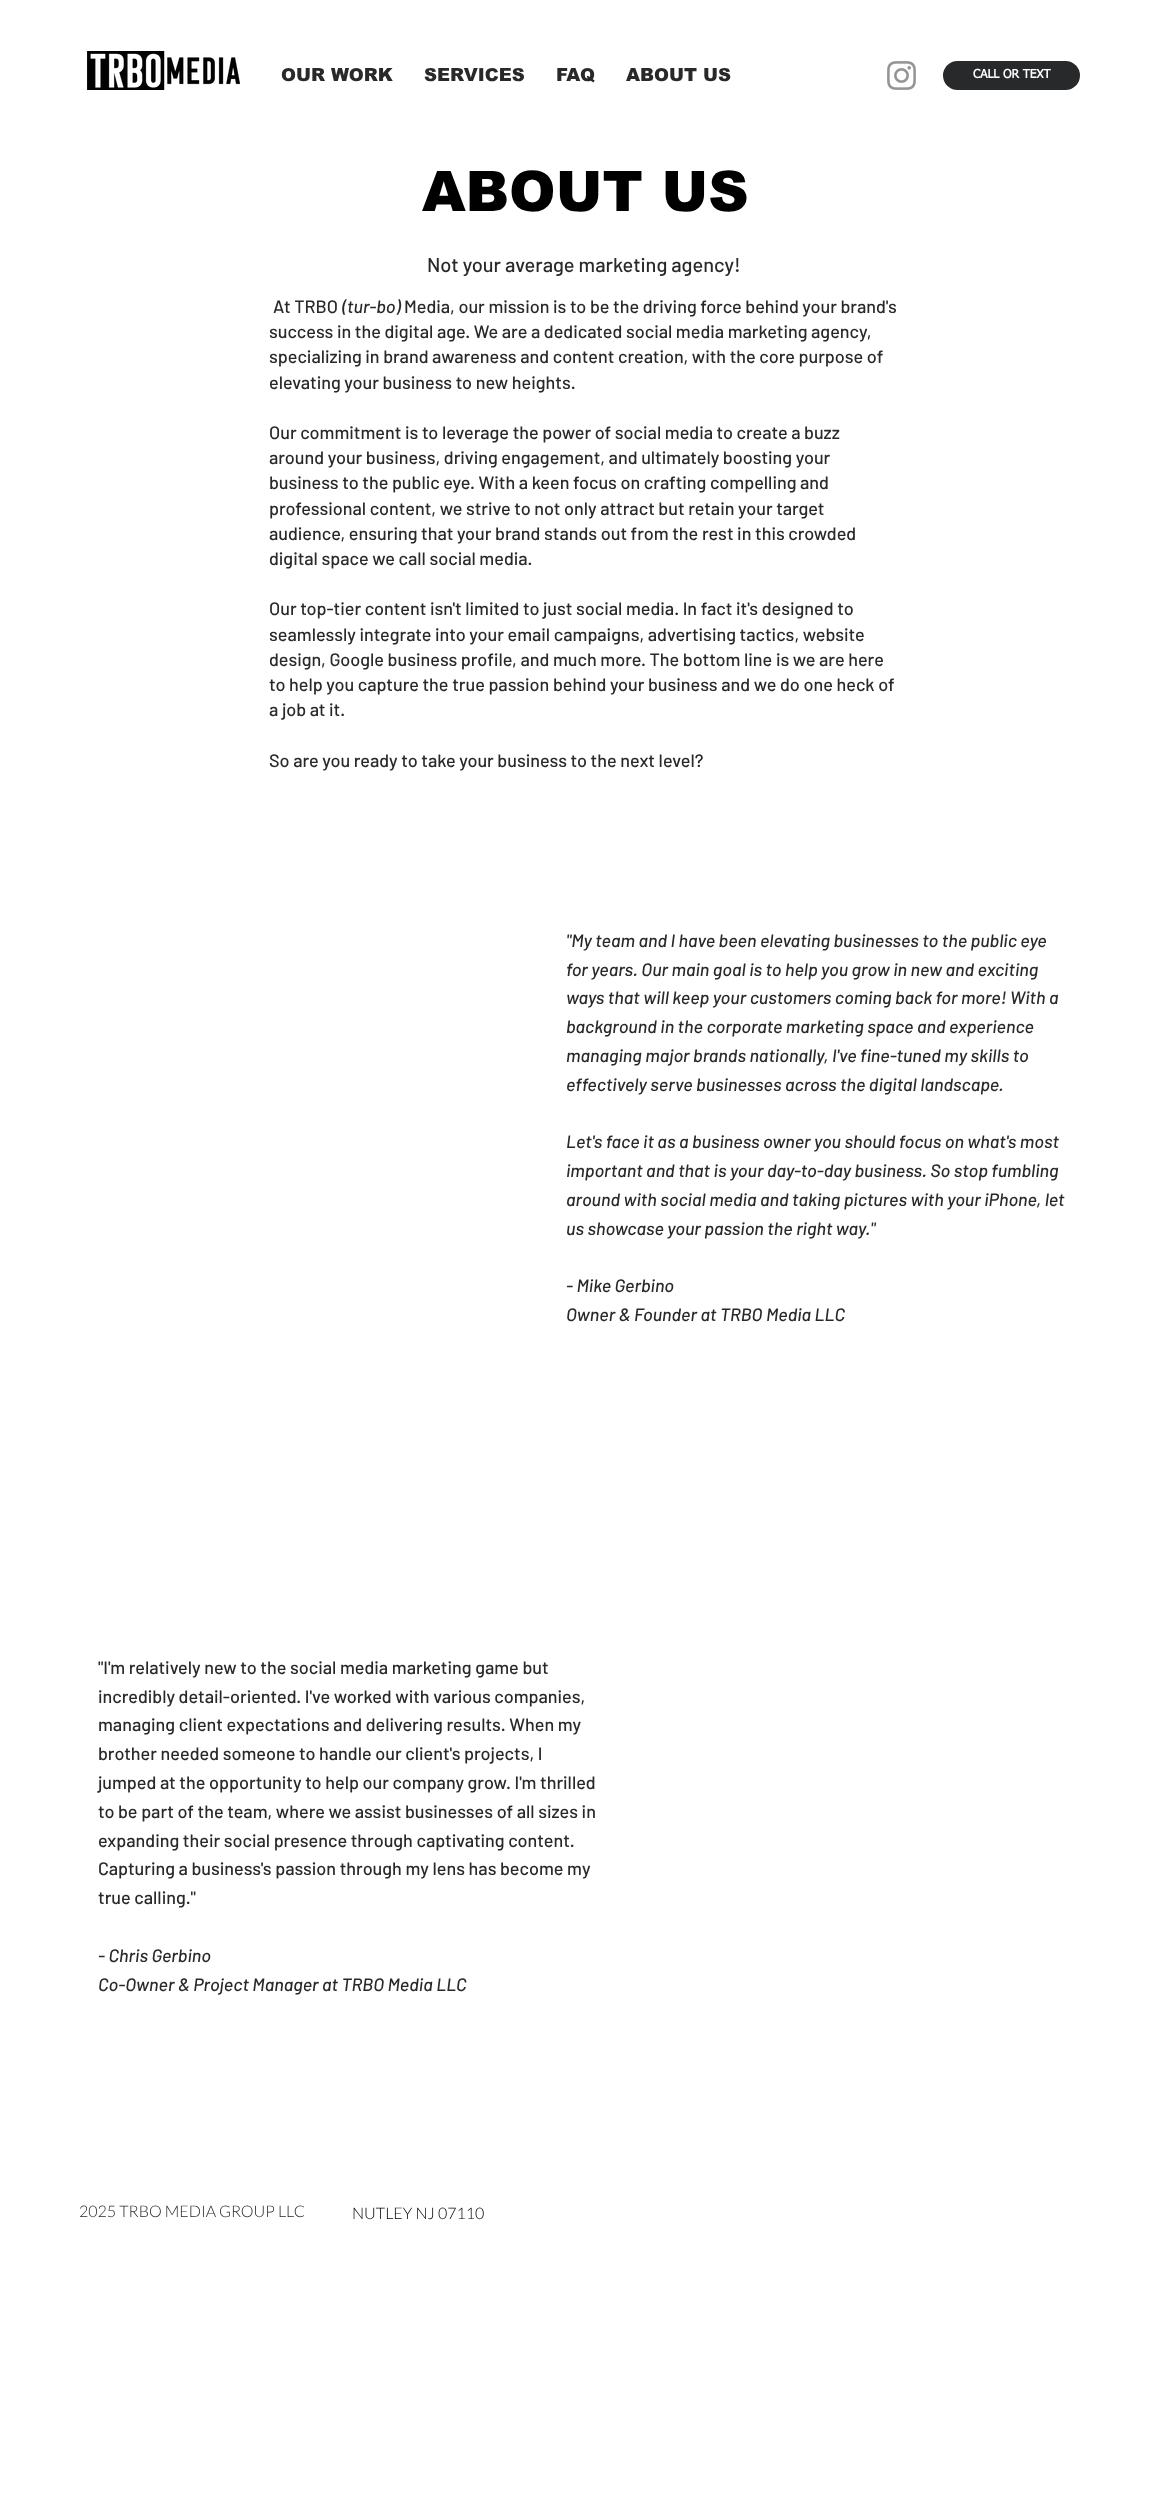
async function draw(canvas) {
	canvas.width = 1170;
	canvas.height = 2511;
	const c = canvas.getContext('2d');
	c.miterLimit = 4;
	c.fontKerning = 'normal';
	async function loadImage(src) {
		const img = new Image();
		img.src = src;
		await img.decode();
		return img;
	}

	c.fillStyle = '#fff';
	c.fillRect(0, 0, 1170, 2511);
	c.drawImage(await loadImage('img1.png'), 87, 51, 153, 39);
	c.font = '900 18px arial';
	c.fillStyle = '#28292b';
	for (const [text, x, y] of [
		['OUR WORK', 281, 81],
		['SERVICES', 424, 81],
		['FAQ', 556, 81],
		['ABOUT US', 626, 81],
	]) {
		c.fillText(text, x, y);
	}
	c.drawImage(await loadImage('img2.png'), 887, 61, 29, 29);
	c.beginPath();
	c.roundRect(943, 61, 137, 29, 14.5);
	c.fill();
	c.font = 'bold 12px tahoma';
	c.fillStyle = '#fff';
	c.fillText('CALL OR TEXT', 973, 78);
	c.font = '900 56px arial';
	c.fillStyle = '#000';
	c.fillText('ABOUT US', 422, 211);
	c.font = '500 20px Barlow';
	c.fillStyle = '#28292b';
	c.fillText('Not your average marketing agency!', 427, 272);
	c.font = '500 18px Barlow';
	c.fillText('At TRBO', 273, 313);
	c.font = 'italic 500 18px Barlow';
	c.fillText('(tur-bo)', 342, 313);
	c.font = '500 18px Barlow';
	for (const [text, x, y] of [
		['Media, our mission is to be the driving force behind your brand\'s', 404, 313],
		['success in the digital age. We are a dedicated social media marketing agency,', 269, 338],
		['specializing in brand awareness and content creation, with the core purpose of', 269, 363],
		['elevating your business to new heights.', 269, 389],
		['Our commitment is to leverage the power of social media to create a buzz', 269, 439],
		['around your business, driving engagement, and ultimately boosting your', 269, 464],
		['business to the public eye. With a keen focus on crafting compelling and', 269, 489],
		['professional content, we strive to not only attract but retain your target', 269, 515],
		['audience, ensuring that your brand stands out from the rest in this crowded', 269, 540],
		['digital space we call social media.', 269, 565],
		['Our top-tier content isn\'t limited to just social media. In fact it\'s designed to', 269, 615],
		['seamlessly integrate into your email campaigns, advertising tactics, website', 269, 641],
		['design, Google business profile, and much more. The bottom line is we are here', 269, 666],
		['to help you capture the true passion behind your business and we do one heck of', 269, 691],
		['a job at it.', 269, 716],
		['So are you ready to take your business to the next level?', 269, 767],
	]) {
		c.fillText(text, x, y);
	}
	c.font = 'italic 500 18px Barlow';
	for (const [text, x, y] of [
		['"My team and I have been elevating businesses to the public eye', 566, 947],
		['for years. Our main goal is to help you grow in new and exciting', 566, 976],
		['ways that will keep your customers coming back for more! With a', 566, 1004],
		['background in the corporate marketing space and experience', 566, 1033],
		['managing major brands nationally, I\'ve fine-tuned my skills to', 566, 1062],
		['effectively serve businesses across the digital landscape.', 566, 1091],
		['Let\'s face it as a business owner you should focus on what\'s most', 566, 1148],
		['important and that is your day-to-day business. So stop fumbling', 566, 1177],
		['around with social media and taking pictures with your iPhone, let', 566, 1206],
		['us showcase your passion the right way."', 566, 1235],
		['- Mike Gerbino', 566, 1292],
		['Owner & Founder at TRBO Media LLC', 566, 1321],
	]) {
		c.fillText(text, x, y);
	}
	c.font = '500 18px Barlow';
	for (const [text, x, y] of [
		['"I\'m relatively new to the social media marketing game but', 98, 1674],
		['incredibly detail-oriented. I\'ve worked with various companies,', 98, 1703],
		['managing client expectations and delivering results. When my', 98, 1731],
		['brother needed someone to handle our client\'s projects, I', 98, 1760],
		['jumped at the opportunity to help our company grow. I\'m thrilled', 98, 1789],
		['to be part of the team, where we assist businesses of all sizes in', 98, 1818],
		['expanding their social presence through captivating content.', 98, 1847],
		['Capturing a business\'s passion through my lens has become my', 98, 1875],
		['true calling."', 98, 1904],
	]) {
		c.fillText(text, x, y);
	}
	c.font = 'italic 500 18px Barlow';
	c.fillText('- Chris Gerbino', 98, 1962);
	c.fillText('Co-Owner & Project Manager at TRBO Media LLC', 98, 1991);
	c.font = '300 16px Lato';
	c.fillText('2025 TRBO MEDIA GROUP LLC', 79, 2217);
	c.fillStyle = '#000';
	c.fillText('NUTLEY NJ 07110', 352, 2219);
}

draw(document.querySelector('canvas'));
